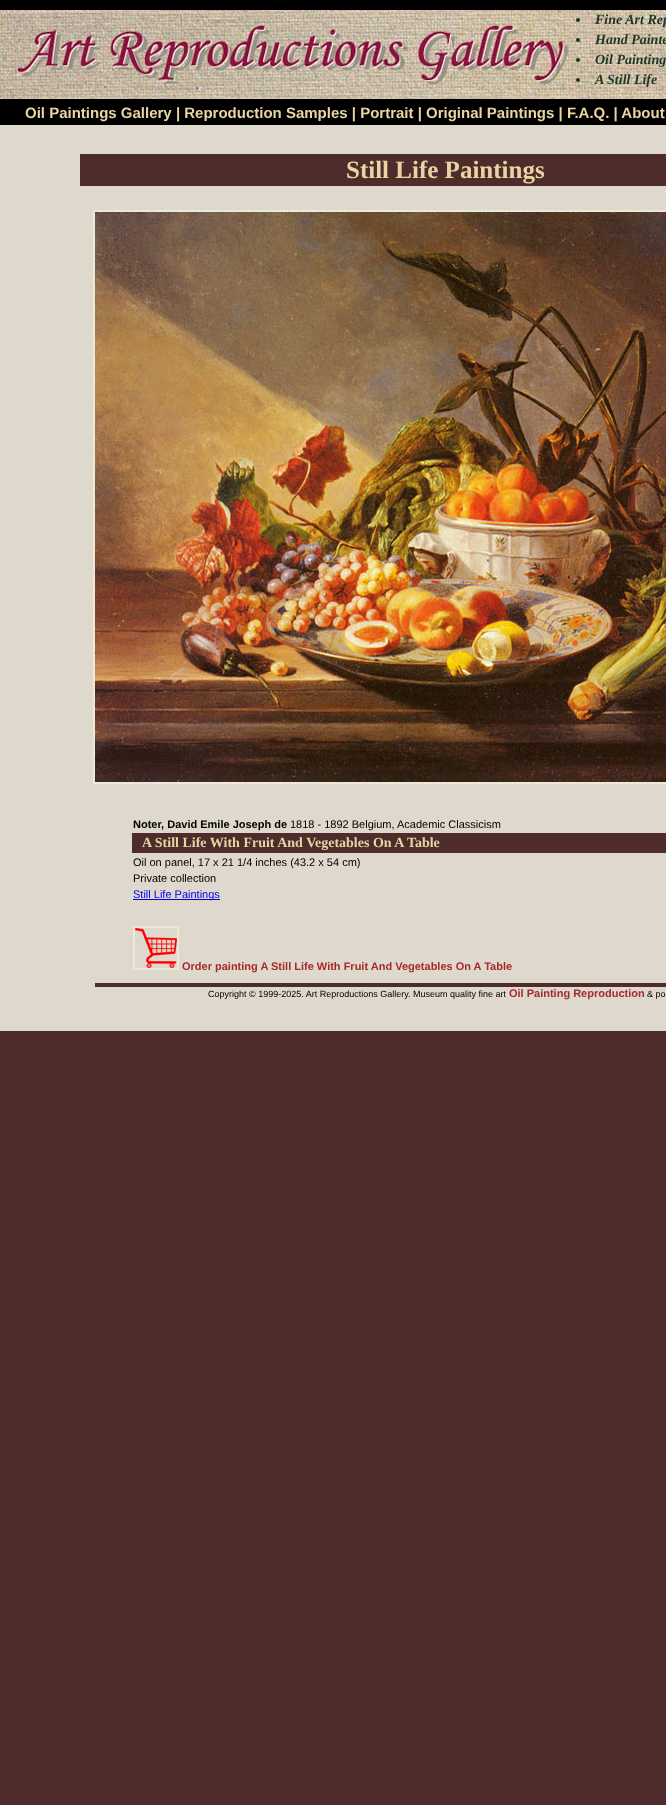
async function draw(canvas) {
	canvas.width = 666;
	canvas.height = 1805;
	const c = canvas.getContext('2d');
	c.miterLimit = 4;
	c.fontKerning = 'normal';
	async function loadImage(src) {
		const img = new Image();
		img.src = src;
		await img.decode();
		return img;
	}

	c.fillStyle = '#4d2c2b';
	c.fillRect(0, 0, 666, 1805);
	c.fillStyle = '#000';
	c.fillRect(0, 0, 666, 125);
	c.drawImage(await loadImage('img1.png'), 0, 10, 576, 89);
	c.drawImage(await loadImage('img2.png'), 0, 13, 576, 84);
	c.drawImage(await loadImage('img3.png'), 576, 10, 90, 89);
	c.fillStyle = '#1a3726';
	c.beginPath();
	c.arc(578, 20, 2, 0, 2 * Math.PI);
	c.fill();
	c.font = 'italic bold 14px Liberation Serif';
	c.fillText('Fine Art Rep', 595, 24);
	c.beginPath();
	c.arc(578, 40, 2, 0, 2 * Math.PI);
	c.fill();
	c.fillText('Hand Painte', 595, 44);
	c.beginPath();
	c.arc(578, 60, 2, 0, 2 * Math.PI);
	c.fill();
	c.fillText('Oil Painting', 595, 64);
	c.beginPath();
	c.arc(578, 80, 2, 0, 2 * Math.PI);
	c.fill();
	c.fillText('A Still Life', 595, 84);
	c.font = 'bold 15px Liberation Sans';
	c.fillStyle = '#e9d5a3';
	c.fillText('Oil Paintings Gallery | Reproduction Samples | Portrait | Original Paintings | F.A.Q. | About', 25, 118);
	c.fillStyle = '#dfd9cd';
	c.fillRect(0, 125, 666, 906);
	c.fillStyle = '#4d2c2b';
	c.fillRect(80, 154, 586, 32);
	c.font = 'bold 25px Liberation Serif';
	c.fillStyle = '#e9d5a3';
	c.fillText('Still Life Paintings', 346, 178);
	c.strokeStyle = '#ece9d8';
	c.lineWidth = 2;
	c.strokeRect(94, 211, 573, 572);
	c.drawImage(await loadImage('img4.png'), 95, 212, 571, 570);
	c.font = 'bold 11px Liberation Sans';
	c.fillStyle = '#000';
	c.fillText('Noter, David Emile Joseph de', 133, 828);
	c.font = '11px Liberation Sans';
	c.fillText('1818 - 1892 Belgium,', 290, 828);
	c.fillText('Academic Classicism', 397, 828);
	c.fillStyle = '#4d2c2b';
	c.fillRect(132, 833, 534, 20);
	c.font = 'bold 14px Liberation Serif';
	c.fillStyle = '#e9d5a3';
	c.fillText('A Still Life With Fruit And Vegetables On A Table', 142, 847);
	c.font = '11px Liberation Sans';
	c.fillStyle = '#000';
	c.fillText('Oil on panel, 17 x 21 1/4 inches (43.2 x 54 cm)', 133, 866);
	c.fillText('Private collection', 133, 882);
	c.fillStyle = '#00e';
	c.fillRect(133, 899, 87, 1);
	c.fillText('Still Life Paintings', 133, 898);
	c.strokeRect(134, 927, 44, 42);
	c.drawImage(await loadImage('img5.png'), 135, 928, 42, 40);
	c.font = 'bold 11px Liberation Sans';
	c.fillStyle = '#a52a2a';
	c.fillText('Order painting A Still Life With Fruit And Vegetables On A Table', 182, 970);
	c.fillStyle = '#4d2c2b';
	c.fillRect(95, 983, 571, 4);
	c.font = '9px Liberation Sans';
	c.fillStyle = '#000';
	c.fillText('Copyright © 1999-2025. Art Reproductions Gallery. Museum quality fine art', 208, 997);
	c.font = 'bold 11px Liberation Sans';
	c.fillStyle = '#a52a2a';
	c.fillText('Oil Painting Reproduction', 509, 997);
	c.font = '9px Liberation Sans';
	c.fillStyle = '#000';
	c.fillText('& po', 647, 997);
}

draw(document.querySelector('canvas'));
